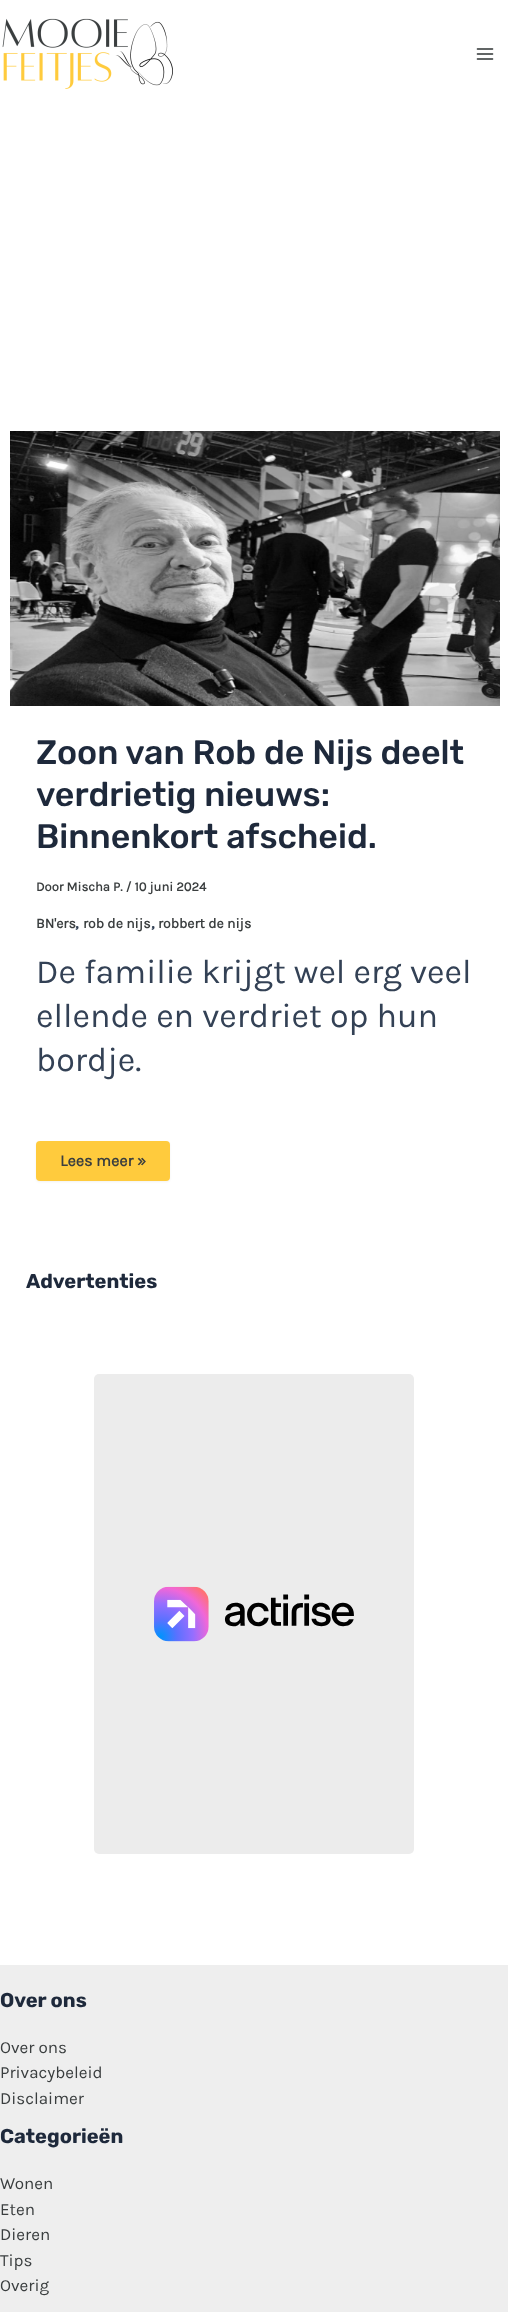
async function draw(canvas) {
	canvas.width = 508;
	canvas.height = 2312;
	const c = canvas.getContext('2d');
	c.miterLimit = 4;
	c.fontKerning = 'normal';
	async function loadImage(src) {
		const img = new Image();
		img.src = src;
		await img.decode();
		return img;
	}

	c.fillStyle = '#fff';
	c.fillRect(0, 0, 508, 2312);
	c.drawImage(await loadImage('img1.png'), 2, 18, 171, 71);
	c.drawImage(await loadImage('img2.png'), 476, 48, 18, 12);
	c.drawImage(await loadImage('img3.png'), 10, 431, 490, 275);
	c.font = '500 34px Rubik';
	c.fillStyle = '#1e293b';
	for (const [text, x, y] of [
		['Zoon van Rob de Nijs deelt', 36, 764],
		['verdrietig nieuws:', 36, 806],
		['Binnenkort afscheid.', 36, 848],
	]) {
		c.fillText(text, x, y);
	}
	c.font = 'bold 13px Karla';
	c.fillStyle = '#3a3e3f';
	c.fillText('Door Mischa P. / 10 juni 2024', 36, 891);
	c.font = 'bold 14px Karla';
	c.fillText('BN\'ers', 36, 928);
	c.font = 'bold 17px Karla';
	c.fillStyle = '#334155';
	c.fillText(',', 75, 928);
	c.font = 'bold 14px Karla';
	c.fillStyle = '#3a3e3f';
	c.fillText('rob de nijs', 83, 928);
	c.font = 'bold 17px Karla';
	c.fillStyle = '#334155';
	c.fillText(',', 151, 928);
	c.font = 'bold 14px Karla';
	c.fillStyle = '#3a3e3f';
	c.fillText('robbert de nijs', 158, 928);
	c.font = '34px Karla';
	c.fillStyle = '#334155';
	for (const [text, x, y] of [
		['De familie krijgt wel erg veel', 36, 983],
		['ellende en verdriet op hun', 36, 1027],
		['bordje.', 36, 1071],
	]) {
		c.fillText(text, x, y);
	}
	c.fillStyle = '#0000000d';
	c.filter = 'blur(1px)';
	c.beginPath();
	c.roundRect(36, 1142, 134, 40, 4);
	c.fill();
	c.filter = 'none';
	c.fillStyle = '#ffcb3d';
	c.beginPath();
	c.roundRect(36, 1141, 134, 40, 4);
	c.fill();
	c.font = 'bold 16px Karla';
	c.fillStyle = '#3a3e3f';
	c.fillText('Lees meer »', 60, 1166);
	c.font = 'bold 20px Rubik';
	c.fillStyle = '#1e293b';
	c.fillText('Advertenties', 26, 1288);
	c.drawImage(await loadImage('img4.png'), 94, 1374, 320, 480);
	c.fillStyle = '#eee';
	c.fillRect(0, 1965, 508, 347);
	c.fillStyle = '#1e293b';
	c.fillText('Over ons', 0, 2007);
	c.font = '17px Karla';
	c.fillStyle = '#3a3e3f';
	for (const [text, x, y] of [
		['Over ons', 0, 2053],
		['Privacybeleid', 0, 2078],
		['Disclaimer', 0, 2104],
	]) {
		c.fillText(text, x, y);
	}
	c.font = 'bold 20px Rubik';
	c.fillStyle = '#1e293b';
	c.fillText('Categorieën', 0, 2143);
	c.font = '17px Karla';
	c.fillStyle = '#3a3e3f';
	for (const [text, x, y] of [
		['Wonen', 0, 2189],
		['Eten', 0, 2215],
		['Dieren', 0, 2240],
		['Tips', 0, 2266],
		['Overig', 0, 2291],
	]) {
		c.fillText(text, x, y);
	}
}

draw(document.querySelector('canvas'));
